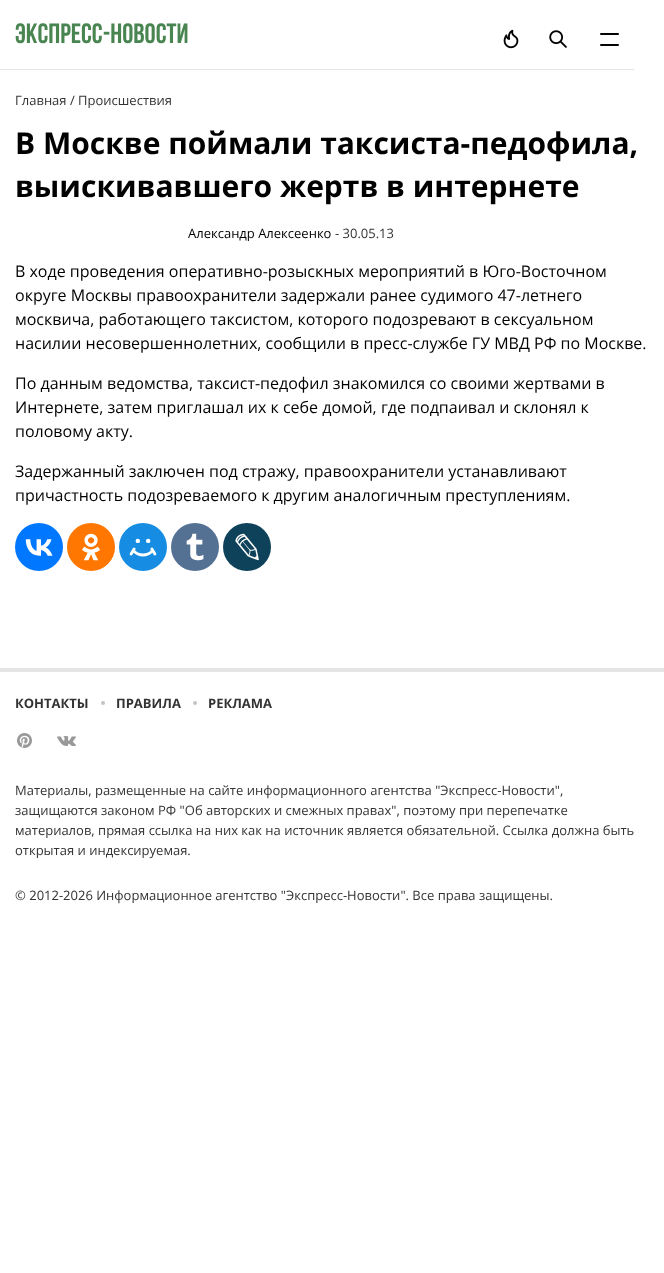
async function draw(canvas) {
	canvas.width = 664;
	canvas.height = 1273;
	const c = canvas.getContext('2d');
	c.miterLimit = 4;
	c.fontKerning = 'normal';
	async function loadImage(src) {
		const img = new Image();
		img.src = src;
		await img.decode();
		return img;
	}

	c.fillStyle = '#fff';
	c.fillRect(0, 0, 664, 1273);
	c.fillStyle = '#e5e5e5';
	c.fillRect(0, 69, 634, 1);
	c.font = 'bold 28px Bebas Neue';
	c.fillStyle = '#488551';
	c.fillText('экспресс-новости', 15, 43);
	c.drawImage(await loadImage('img1.png'), 503, 29, 16, 20);
	c.drawImage(await loadImage('img2.png'), 549, 30, 18, 18);
	c.fillStyle = '#020304';
	c.beginPath();
	c.roundRect(600, 33, 19, 2, 1);
	c.fill();
	c.beginPath();
	c.roundRect(600, 44, 19, 2, 1);
	c.fill();
	c.font = '13px Open Sans';
	c.fillStyle = '#333';
	c.fillText('Главная / Происшествия', 15, 105);
	c.font = 'bold 30px Open Sans';
	c.fillStyle = '#000';
	c.fillText('В Москве поймали таксиста-педофила,', 15, 154);
	c.fillText('выискивавшего жертв в интернете', 15, 197);
	c.font = '13px Open Sans';
	c.fillText('Александр Алексеенко', 188, 238);
	c.fillStyle = '#333';
	c.fillText('- 30.05.13', 335, 238);
	c.font = '16px Open Sans';
	c.fillStyle = '#000';
	for (const [text, x, y] of [
		['В ходе проведения оперативно-розыскных мероприятий в Юго-Восточном', 15, 277],
		['округе Москвы правоохранители задержали ранее судимого 47-летнего', 15, 301],
		['москвича, работающего таксистом, которого подозревают в сексуальном', 15, 325],
		['насилии несовершеннолетних, сообщили в пресс-службе ГУ МВД РФ по Москве.', 15, 349],
		['По данным ведомства, таксист-педофил знакомился со своими жертвами в', 15, 389],
		['Интернете, затем приглашал их к себе домой, где подпаивал и склонял к', 15, 413],
		['половому акту.', 15, 437],
		['Задержанный заключен под стражу, правоохранители устанавливают', 15, 477],
		['причастность подозреваемого к другим аналогичным преступлениям.', 15, 501],
	]) {
		c.fillText(text, x, y);
	}
	c.fillStyle = '#07f';
	c.beginPath();
	c.arc(39, 547, 24, 0, 2 * Math.PI);
	c.fill();
	c.drawImage(await loadImage('img3.png'), 25, 539, 28, 17);
	c.fillStyle = '#f70';
	c.beginPath();
	c.arc(91, 547, 24, 0, 2 * Math.PI);
	c.fill();
	c.drawImage(await loadImage('img4.png'), 82, 533, 18, 28);
	c.fillStyle = '#168de2';
	c.beginPath();
	c.arc(143, 547, 24, 0, 2 * Math.PI);
	c.fill();
	c.drawImage(await loadImage('img5.png'), 129, 538, 28, 19);
	c.fillStyle = '#547093';
	c.beginPath();
	c.arc(195, 547, 24, 0, 2 * Math.PI);
	c.fill();
	c.drawImage(await loadImage('img6.png'), 186, 533, 18, 28);
	c.fillStyle = '#0d425a';
	c.beginPath();
	c.arc(247, 547, 24, 0, 2 * Math.PI);
	c.fill();
	c.drawImage(await loadImage('img7.png'), 235, 533, 24, 28);
	c.fillStyle = '#e5e5e5';
	c.fillRect(0, 668, 664, 4);
	c.font = 'bold 13px Open Sans';
	c.fillStyle = '#333';
	c.fillText('КОНТАКТЫ', 15, 708);
	c.fillStyle = '#c4c4c4';
	c.beginPath();
	c.arc(103, 703, 2, 0, 2 * Math.PI);
	c.fill();
	c.fillStyle = '#333';
	c.fillText('ПРАВИЛА', 116, 708);
	c.fillStyle = '#c4c4c4';
	c.beginPath();
	c.arc(195, 703, 2, 0, 2 * Math.PI);
	c.fill();
	c.fillStyle = '#333';
	c.fillText('РЕКЛАМА', 208, 708);
	c.drawImage(await loadImage('img8.png'), 17, 733, 15, 15);
	c.drawImage(await loadImage('img9.png'), 57, 736, 19, 10);
	c.font = '13px Open Sans';
	for (const [text, x, y] of [
		['Материалы, размещенные на сайте информационного агентства "Экспресс-Новости",', 15, 795],
		['защищаются законом РФ "Об авторских и смежных правах", поэтому при перепечатке', 15, 815],
		['материалов, прямая ссылка на них как на источник является обязательной. Ссылка должна быть', 15, 835],
		['открытая и индексируемая.', 15, 855],
		['© 2012-2026 Информационное агентство "Экспресс-Новости". Все права защищены.', 15, 900],
	]) {
		c.fillText(text, x, y);
	}
}

draw(document.querySelector('canvas'));
